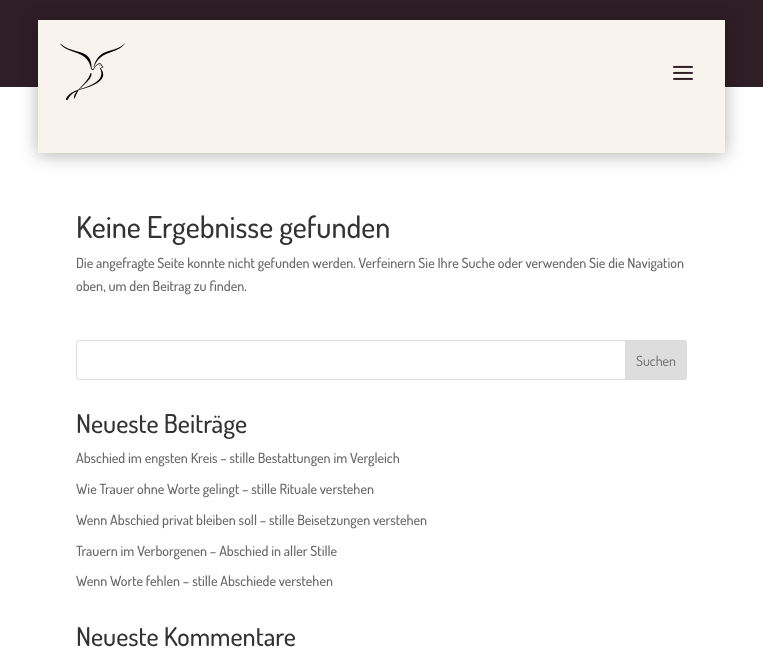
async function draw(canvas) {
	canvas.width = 763;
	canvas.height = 656;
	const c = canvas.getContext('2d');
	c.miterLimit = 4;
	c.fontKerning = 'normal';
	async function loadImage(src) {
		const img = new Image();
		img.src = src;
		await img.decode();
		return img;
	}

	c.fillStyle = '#fff';
	c.fillRect(0, 0, 763, 656);
	c.fillStyle = '#301e27';
	c.fillRect(0, 0, 763, 87);
	c.fillStyle = '#0000004d';
	c.filter = 'blur(9px)';
	c.beginPath();
	c.rect(38, 22, 687, 133);
	c.fill();
	c.filter = 'none';
	c.fillStyle = '#f8f4ed';
	c.fillRect(38, 20, 687, 133);
	c.drawImage(await loadImage('img1.png'), 60, 43, 66, 58);
	c.drawImage(await loadImage('img2.png'), 673, 65, 20, 15);
	c.font = '500 30px Dosis';
	c.fillStyle = '#333';
	c.fillText('Keine Ergebnisse gefunden', 76, 238);
	c.font = '500 14px Dosis';
	c.fillStyle = '#666';
	c.fillText('Die angefragte Seite konnte nicht gefunden werden. Verfeinern Sie Ihre Suche oder verwenden Sie die Navigation', 76, 268);
	c.fillText('oben, um den Beitrag zu finden.', 76, 291);
	c.beginPath();
	c.roundRect(76.5, 340.5, 610, 39, 2.5);
	c.strokeStyle = '#ddd';
	c.stroke();
	c.fillStyle = '#ddd';
	c.beginPath();
	c.roundRect(625.5, 340.5, 61, 39, [0, 2.5, 2.5, 0]);
	c.fill();
	c.stroke();
	c.font = '14px Dosis';
	c.fillStyle = '#666';
	c.fillText('Suchen', 636, 366);
	c.font = '500 26px Dosis';
	c.fillStyle = '#333';
	c.fillText('Neueste Beiträge', 76, 433);
	c.font = '500 14px Dosis';
	c.fillStyle = '#666';
	for (const [text, x, y] of [
		['Abschied im engsten Kreis – stille Bestattungen im Vergleich', 76, 463],
		['Wie Trauer ohne Worte gelingt – stille Rituale verstehen', 76, 494],
		['Wenn Abschied privat bleiben soll – stille Beisetzungen verstehen', 76, 525],
		['Trauern im Verborgenen – Abschied in aller Stille', 76, 556],
		['Wenn Worte fehlen – stille Abschiede verstehen', 76, 586],
	]) {
		c.fillText(text, x, y);
	}
	c.font = '500 26px Dosis';
	c.fillStyle = '#333';
	c.fillText('Neueste Kommentare', 76, 646);
}

draw(document.querySelector('canvas'));
